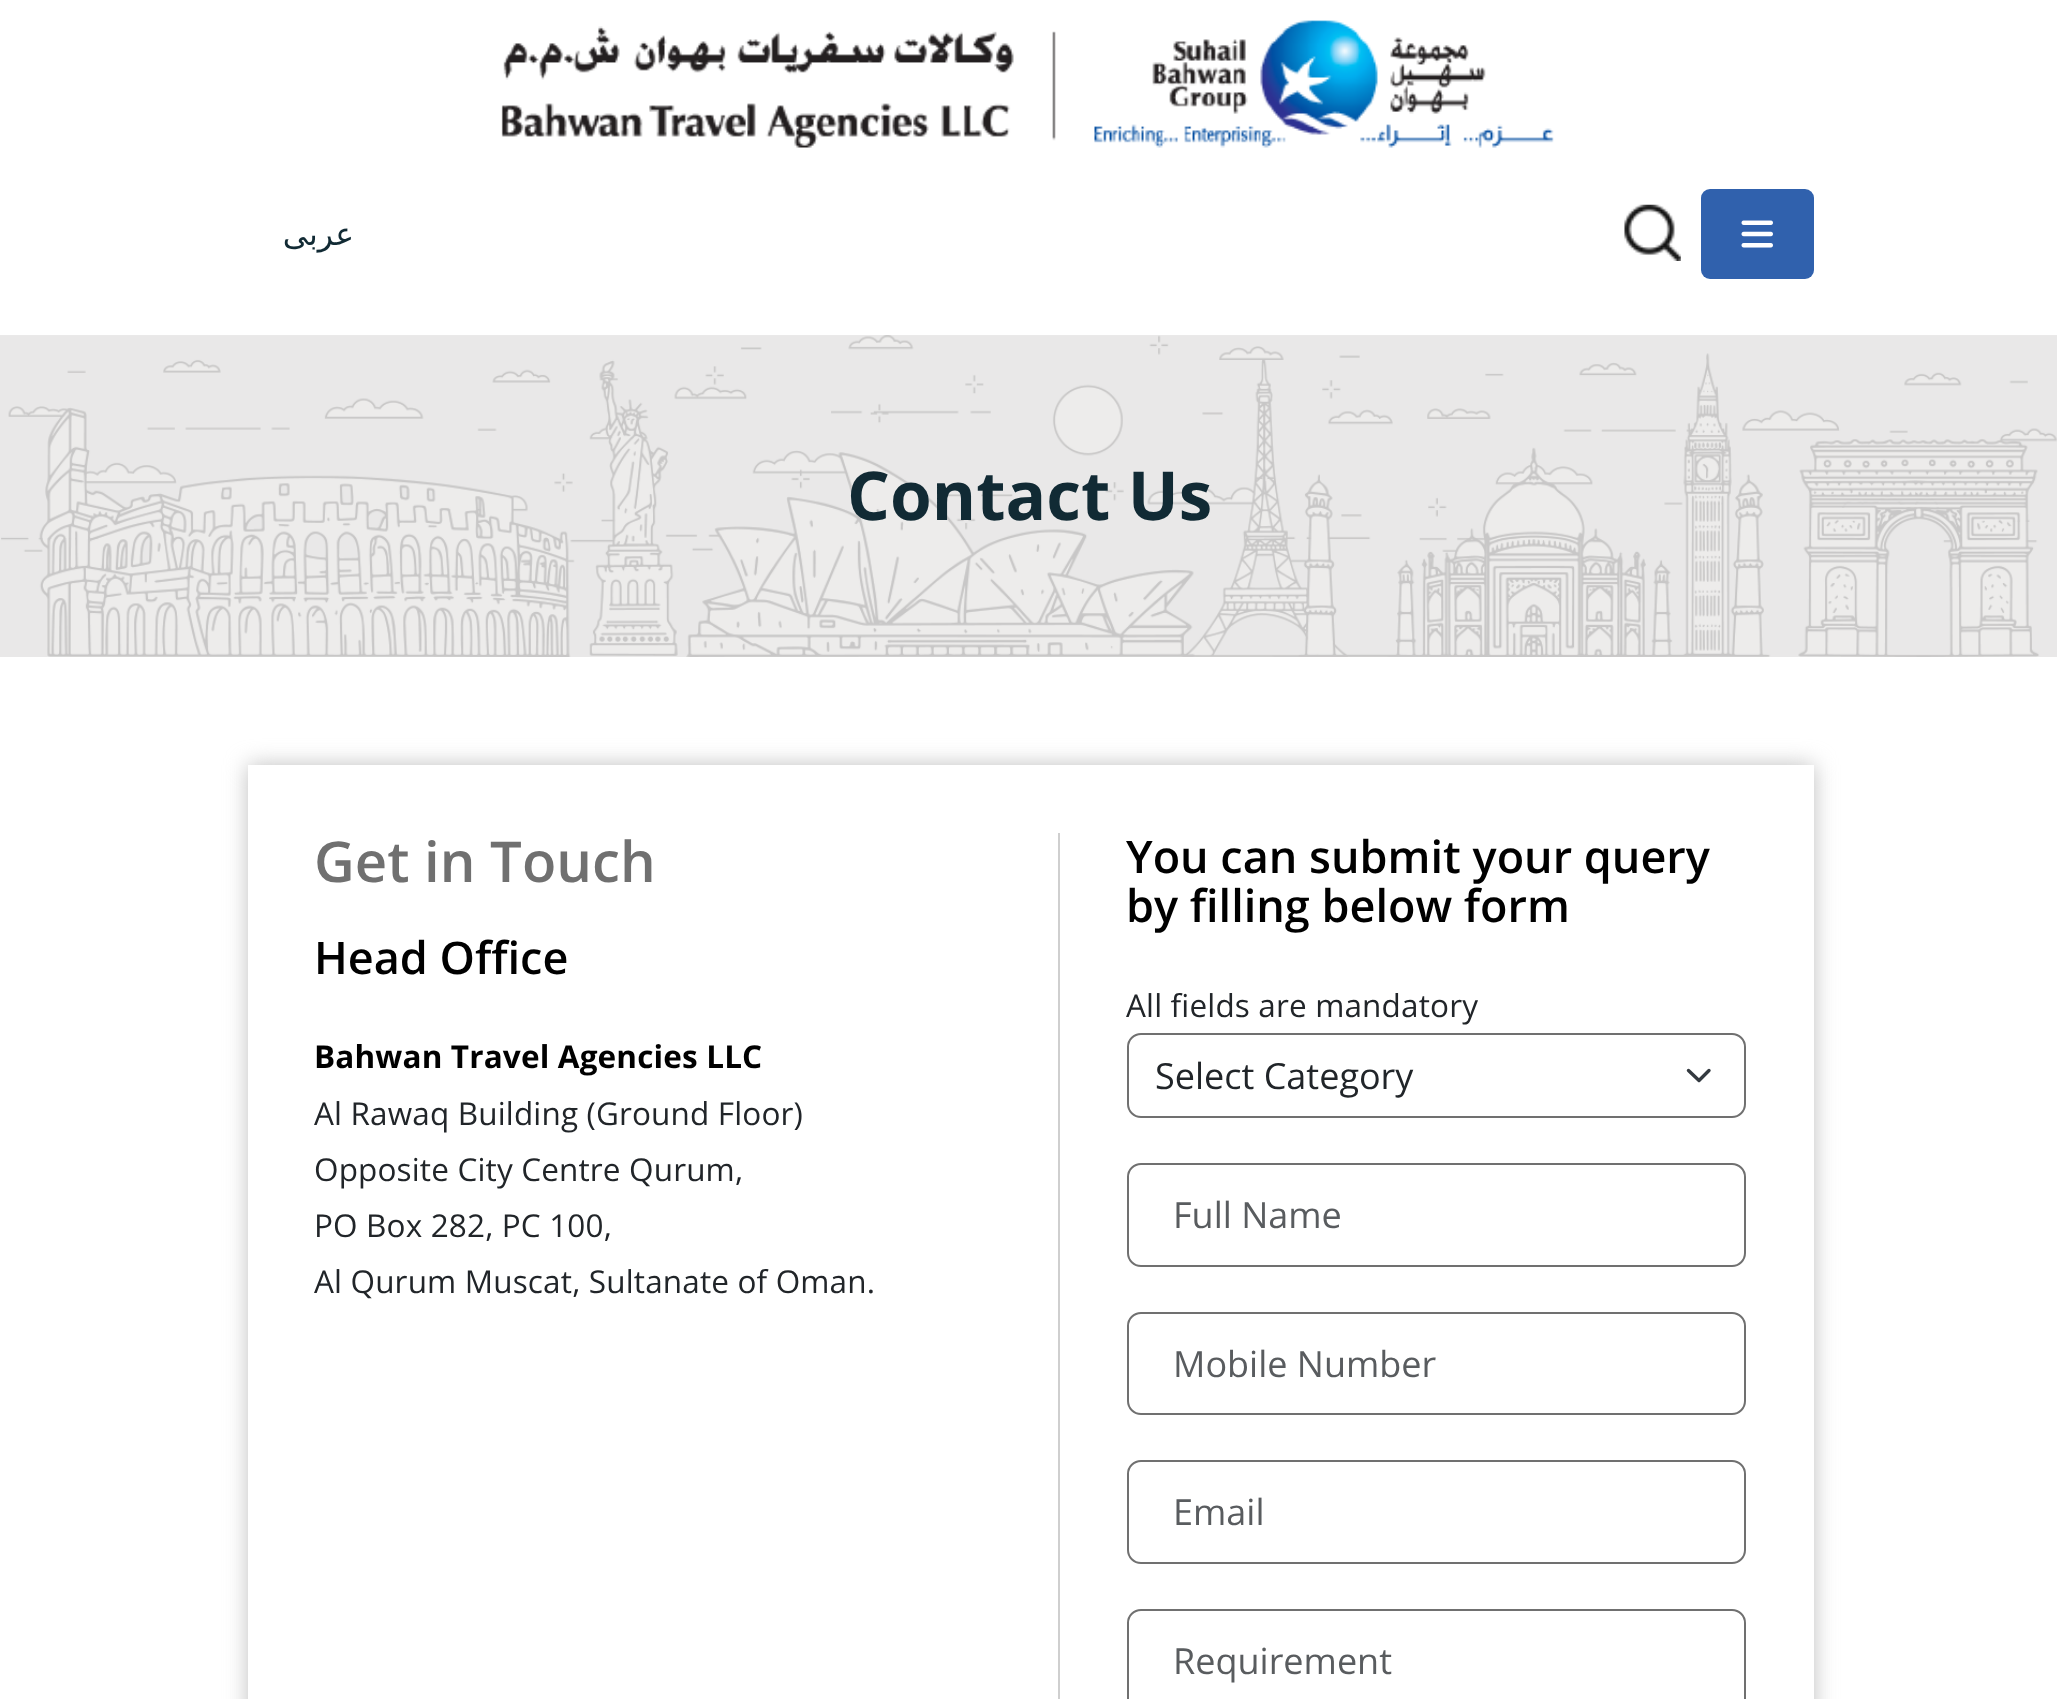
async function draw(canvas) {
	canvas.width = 2057;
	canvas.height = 1699;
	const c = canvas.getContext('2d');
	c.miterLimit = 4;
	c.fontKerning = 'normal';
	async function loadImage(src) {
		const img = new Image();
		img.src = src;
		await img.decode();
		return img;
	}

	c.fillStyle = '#fff';
	c.fillRect(0, 0, 2057, 1699);
	c.drawImage(await loadImage('img1.png'), 501, 20, 1053, 128);
	c.direction = 'rtl';
	c.font = '31.5px DejaVu Sans';
	c.fillStyle = '#112a34';
	c.fillText('عربى', 354, 245);
	c.drawImage(await loadImage('img2.png'), 1624, 204, 57, 57);
	c.fillStyle = '#3061ad';
	c.beginPath();
	c.roundRect(1701, 189, 113, 90, 9);
	c.fill();
	c.drawImage(await loadImage('img3.png'), 1741, 220, 32, 28);
	c.drawImage(await loadImage('img4.png'), 0, 335, 2057, 1);
	c.drawImage(await loadImage('img5.png'), 0, 335, 2057, 322);
	c.direction = 'ltr';
	c.font = 'bold 67.5px Open Sans';
	c.fillStyle = '#112a34';
	c.fillText('Contact Us', 847, 520);
	c.save();
	c.beginPath();
	c.moveTo(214, 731);
	c.lineTo(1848, 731);
	c.lineTo(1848, 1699);
	c.lineTo(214, 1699);
	c.closePath();
	c.moveTo(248, 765);
	c.lineTo(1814, 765);
	c.lineTo(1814, 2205);
	c.lineTo(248, 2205);
	c.closePath();
	c.clip('evenodd');
	c.fillStyle = '#bfbfbf';
	c.filter = 'blur(11px)';
	c.beginPath();
	c.rect(248, 765, 1566, 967);
	c.fill();
	c.filter = 'none';
	c.restore();
	c.font = '600 56.25px Open Sans';
	c.fillStyle = '#707070';
	c.fillText('Get in Touch', 314, 882);
	c.font = '600 45px Open Sans';
	c.fillStyle = '#000';
	c.fillText('Head Office', 314, 974);
	c.letterSpacing = '0.15px';
	c.font = 'bold 31.5px Open Sans';
	c.fillText('Bahwan Travel Agencies LLC', 314, 1068);
	c.font = '31.5px Open Sans';
	c.fillStyle = '#212529';
	for (const [text, x, y] of [
		['Al Rawaq Building (Ground Floor)', 314, 1125],
		['Opposite City Centre Qurum,', 314, 1181],
		['PO Box 282, PC 100,', 314, 1237],
		['Al Qurum Muscat, Sultanate of Oman.', 314, 1293],
	]) {
		c.fillText(text, x, y);
	}
	c.fillStyle = '#cfcfcf';
	c.fillRect(1058, 833, 2, 866);
	c.letterSpacing = '0px';
	c.font = '600 45px Open Sans';
	c.fillStyle = '#000';
	c.fillText('You can submit your query', 1126, 873);
	c.fillText('by filling below form', 1126, 922);
	c.letterSpacing = '0.15px';
	c.font = '31.5px Open Sans';
	c.fillStyle = '#212529';
	c.fillText('All fields are mandatory', 1126, 1017);
	c.beginPath();
	c.moveTo(1688.5, 1070.5);
	c.lineTo(1699, 1080.5);
	c.lineTo(1709, 1070.5);
	c.strokeStyle = '#343a40';
	c.lineWidth = 3.4;
	c.lineCap = 'round';
	c.lineJoin = 'round';
	c.stroke();
	c.beginPath();
	c.roundRect(1128, 1034, 617, 83, 13);
	c.strokeStyle = '#707070';
	c.lineWidth = 2;
	c.lineJoin = 'miter';
	c.stroke();
	c.letterSpacing = '0px';
	c.font = '36px Open Sans';
	c.fillText('Select Category', 1155, 1089);
	c.beginPath();
	c.roundRect(1128, 1164, 617, 102, 13);
	c.stroke();
	c.fillStyle = '#595c5f';
	c.fillText('Full Name', 1173, 1228);
	c.beginPath();
	c.roundRect(1128, 1313, 617, 101, 13);
	c.stroke();
	c.fillText('Mobile Number', 1173, 1377);
	c.beginPath();
	c.roundRect(1128, 1461, 617, 102, 13);
	c.stroke();
	c.fillText('Email', 1173, 1525);
	c.beginPath();
	c.roundRect(1128, 1610, 617, 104, 13);
	c.stroke();
	c.fillText('Requirement', 1173, 1674);
}

draw(document.querySelector('canvas'));
